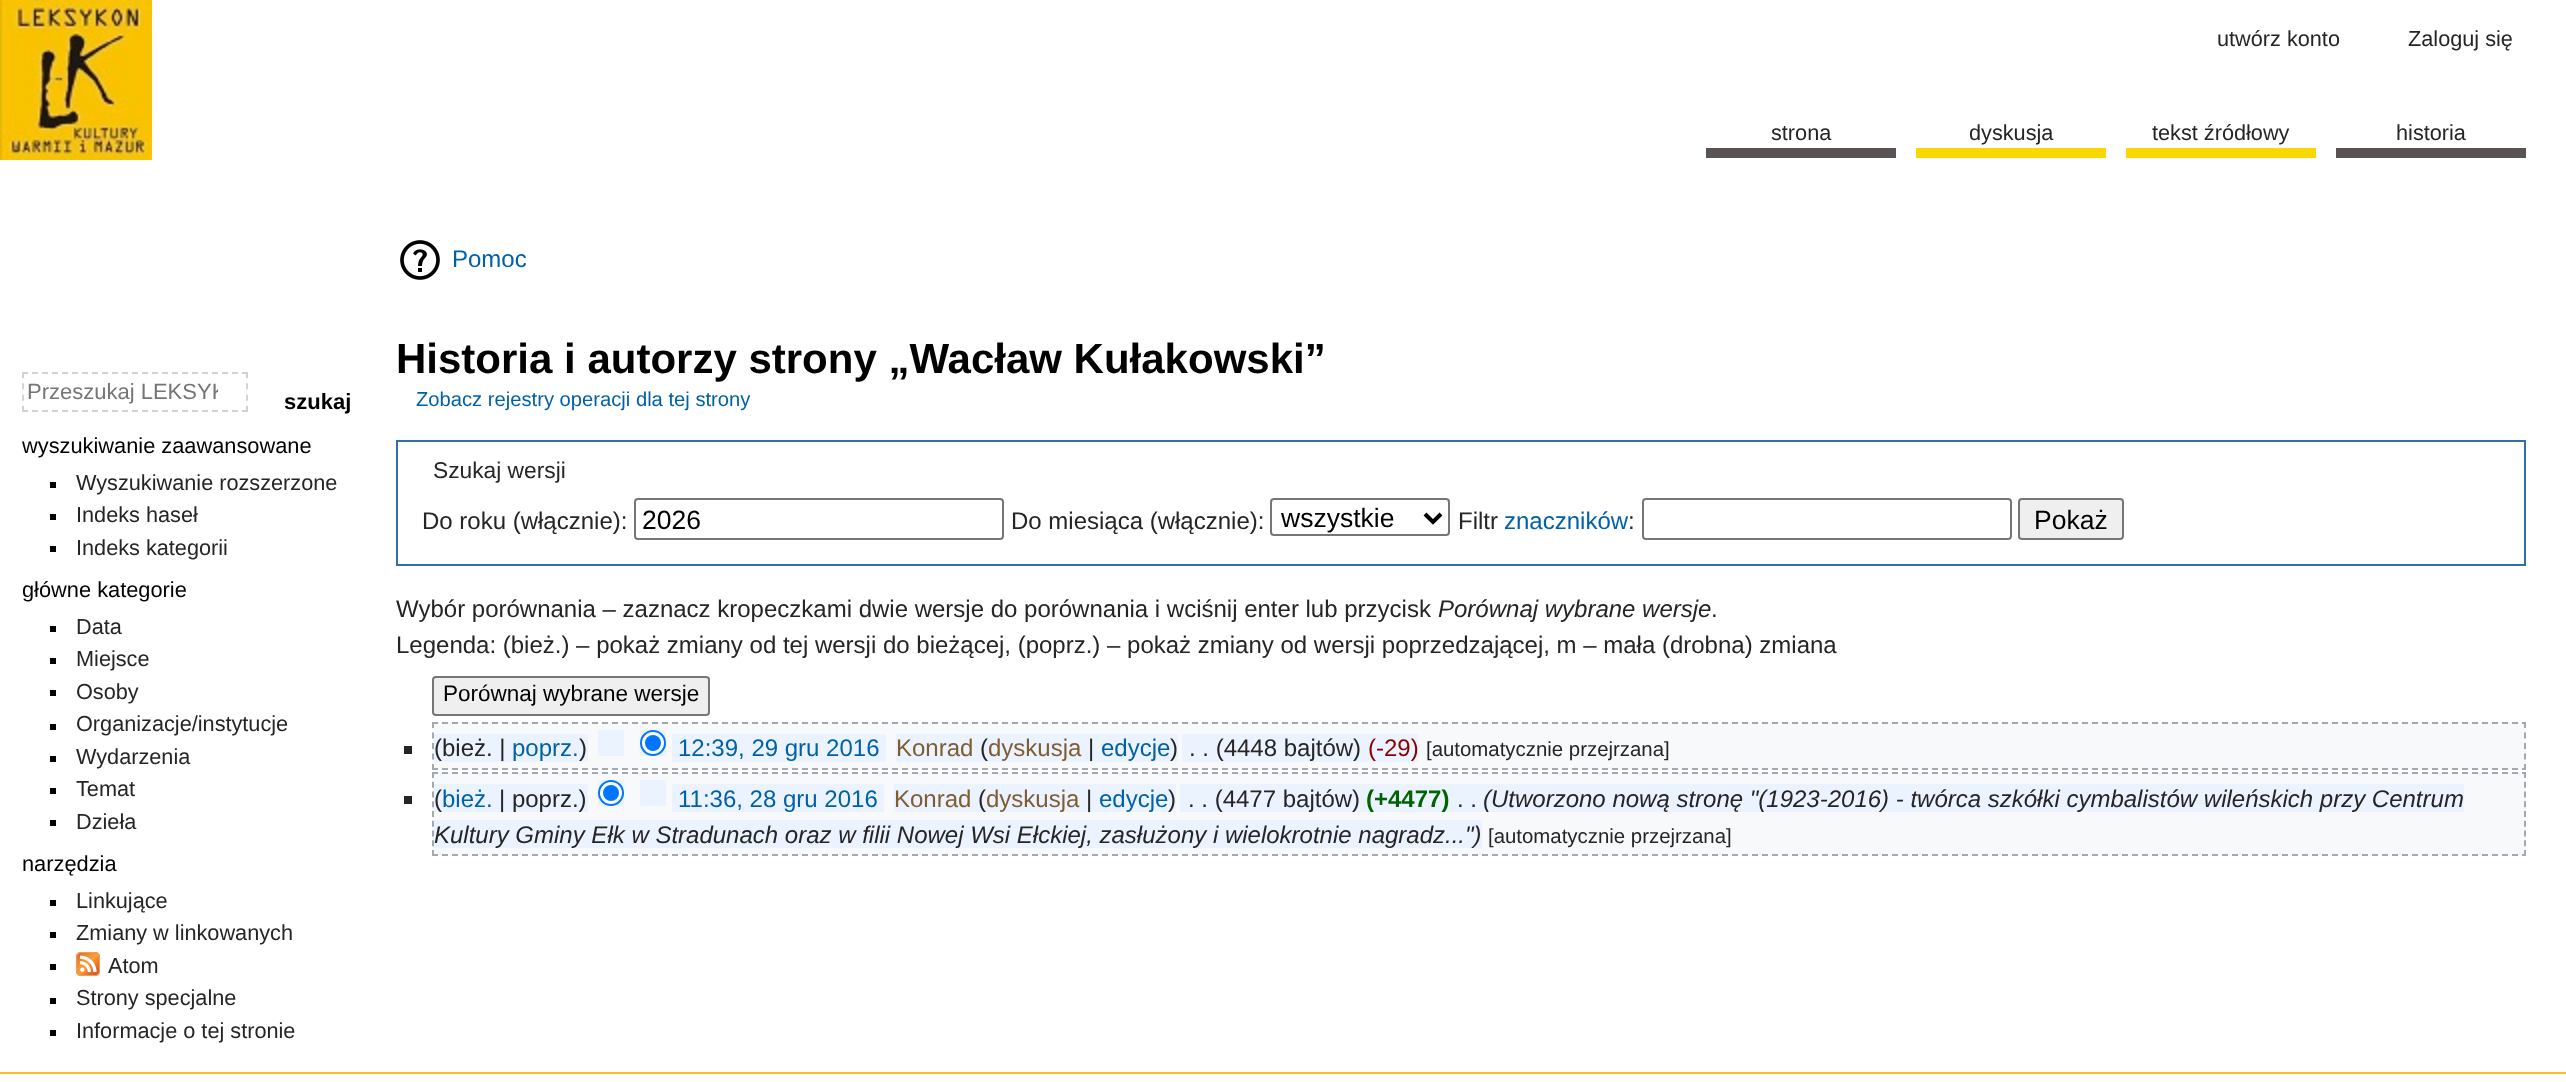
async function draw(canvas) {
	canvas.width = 2566;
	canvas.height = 1082;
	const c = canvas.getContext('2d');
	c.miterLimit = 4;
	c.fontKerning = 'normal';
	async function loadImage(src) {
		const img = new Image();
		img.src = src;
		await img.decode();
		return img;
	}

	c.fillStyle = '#fff';
	c.fillRect(0, 0, 2566, 1082);
	c.drawImage(await loadImage('img1.png'), 0, 0, 152, 160);
	c.font = '21.7px Liberation Sans';
	c.fillStyle = '#252525';
	c.fillText('utwórz konto', 2217, 46);
	c.fillText('Zaloguj się', 2408, 46);
	c.fillStyle = '#585453';
	c.fillRect(1706, 148, 190, 10);
	c.fillStyle = '#252525';
	c.fillText('strona', 1771, 140);
	c.fillStyle = '#f8d800';
	c.fillRect(1916, 148, 190, 10);
	c.fillStyle = '#252525';
	c.fillText('dyskusja', 1969, 140);
	c.fillStyle = '#f8d800';
	c.fillRect(2126, 148, 190, 10);
	c.fillStyle = '#252525';
	c.fillText('tekst źródłowy', 2152, 140);
	c.fillStyle = '#585453';
	c.fillRect(2336, 148, 190, 10);
	c.fillStyle = '#252525';
	c.fillText('historia', 2396, 140);
	c.beginPath();
	c.moveTo(22, 373);
	c.lineTo(248, 373);
	c.strokeStyle = '#d2d2d2';
	c.lineWidth = 2;
	c.setLineDash([6, 4]);
	c.stroke();
	c.beginPath();
	c.moveTo(247, 372);
	c.lineTo(247, 412);
	c.setLineDash([6, 5.34]);
	c.stroke();
	c.beginPath();
	c.moveTo(22, 411);
	c.lineTo(248, 411);
	c.setLineDash([6, 4]);
	c.stroke();
	c.beginPath();
	c.moveTo(23, 372);
	c.lineTo(23, 412);
	c.setLineDash([6, 5.34]);
	c.stroke();
	c.save();
	c.beginPath();
	c.rect(28, 380, 190, 24);
	c.clip();
	c.font = '22px Liberation Sans';
	c.fillStyle = '#757575';
	c.fillText('Przeszukaj LEKSYK', 27, 399);
	c.restore();
	c.font = 'bold 22px Liberation Sans';
	c.fillStyle = '#000';
	c.fillText('szukaj', 284, 409);
	c.font = '21.8px Liberation Sans';
	c.fillText('wyszukiwanie zaawansowane', 22, 453);
	c.fillRect(50, 482, 6, 6);
	c.font = '21.7px Liberation Sans';
	c.fillStyle = '#252525';
	c.fillText('Wyszukiwanie rozszerzone', 76, 490);
	c.fillStyle = '#000';
	c.fillRect(50, 514, 6, 6);
	c.fillStyle = '#252525';
	c.fillText('Indeks haseł', 76, 522);
	c.fillStyle = '#000';
	c.fillRect(50, 546, 6, 6);
	c.fillStyle = '#252525';
	c.fillText('Indeks kategorii', 76, 555);
	c.font = '21.8px Liberation Sans';
	c.fillStyle = '#000';
	c.fillText('główne kategorie', 22, 597);
	c.fillRect(50, 626, 6, 6);
	c.font = '21.7px Liberation Sans';
	c.fillStyle = '#252525';
	c.fillText('Data', 76, 634);
	c.fillStyle = '#000';
	c.fillRect(50, 658, 6, 6);
	c.fillStyle = '#252525';
	c.fillText('Miejsce', 76, 666);
	c.fillStyle = '#000';
	c.fillRect(50, 690, 6, 6);
	c.fillStyle = '#252525';
	c.fillText('Osoby', 76, 699);
	c.fillStyle = '#000';
	c.fillRect(50, 724, 6, 6);
	c.fillStyle = '#252525';
	c.fillText('Organizacje/instytucje', 76, 731);
	c.fillStyle = '#000';
	c.fillRect(50, 756, 6, 6);
	c.fillStyle = '#252525';
	c.fillText('Wydarzenia', 76, 764);
	c.fillStyle = '#000';
	c.fillRect(50, 788, 6, 6);
	c.fillStyle = '#252525';
	c.fillText('Temat', 76, 796);
	c.fillStyle = '#000';
	c.fillRect(50, 820, 6, 6);
	c.fillStyle = '#252525';
	c.fillText('Dzieła', 76, 829);
	c.font = '21.8px Liberation Sans';
	c.fillStyle = '#000';
	c.fillText('narzędzia', 22, 871);
	c.fillRect(50, 900, 6, 6);
	c.font = '21.7px Liberation Sans';
	c.fillStyle = '#252525';
	c.fillText('Linkujące', 76, 908);
	c.fillStyle = '#000';
	c.fillRect(50, 932, 6, 6);
	c.fillStyle = '#252525';
	c.fillText('Zmiany w linkowanych', 76, 940);
	c.fillStyle = '#000';
	c.fillRect(50, 964, 6, 6);
	c.drawImage(await loadImage('img2.png'), 76, 952, 24, 24);
	c.fillStyle = '#252525';
	c.fillText('Atom', 108, 973);
	c.fillStyle = '#000';
	c.fillRect(50, 998, 6, 6);
	c.fillStyle = '#252525';
	c.fillText('Strony specjalne', 76, 1005);
	c.fillStyle = '#000';
	c.fillRect(50, 1030, 6, 6);
	c.fillStyle = '#252525';
	c.fillText('Informacje o tej stronie', 76, 1038);
	c.drawImage(await loadImage('img3.png'), 400, 240, 40, 40);
	c.font = '24px Liberation Sans';
	c.fillStyle = '#0061a8';
	c.fillText('Pomoc', 452, 267);
	c.font = 'bold 42px Liberation Sans';
	c.fillStyle = '#000';
	c.fillText('Historia i autorzy strony „Wacław Kułakowski”', 396, 373);
	c.font = '20.2px Liberation Sans';
	c.fillStyle = '#0061a8';
	c.fillText('Zobacz rejestry operacji dla tej strony', 416, 406);
	c.strokeStyle = '#2f6fab';
	c.setLineDash([]);
	c.strokeRect(397, 441, 2128, 124);
	c.font = '22.75px Liberation Sans';
	c.fillStyle = '#252525';
	c.fillText('Szukaj wersji', 433, 478);
	c.font = '24px Liberation Sans';
	c.fillText('Do roku (włącznie):', 422, 529);
	c.beginPath();
	c.roundRect(635, 499, 368, 40, 3);
	c.strokeStyle = '#767676';
	c.stroke();
	c.font = '26.5px Liberation Sans';
	c.fillStyle = '#000';
	c.fillText('2026', 642, 529);
	c.font = '24px Liberation Sans';
	c.fillStyle = '#252525';
	c.fillText('Do miesiąca (włącznie):', 1011, 529);
	c.beginPath();
	c.roundRect(1271, 499, 178, 36, 3);
	c.stroke();
	c.beginPath();
	c.moveTo(1425, 514);
	c.lineTo(1433, 522);
	c.lineTo(1441, 514);
	c.strokeStyle = '#000';
	c.lineWidth = 4;
	c.stroke();
	c.font = '26.5px Liberation Sans';
	c.fillStyle = '#000';
	c.fillText('wszystkie', 1281, 527);
	c.font = '24px Liberation Sans';
	c.fillStyle = '#252525';
	c.fillText('Filtr', 1458, 529);
	c.fillStyle = '#0061a8';
	c.fillText('znaczników', 1504, 529);
	c.fillStyle = '#252525';
	c.fillText(':', 1628, 529);
	c.beginPath();
	c.roundRect(1643, 499, 368, 40, 3);
	c.strokeStyle = '#767676';
	c.lineWidth = 2;
	c.stroke();
	c.fillStyle = '#efefef';
	c.beginPath();
	c.roundRect(2019, 499, 104, 40, 3);
	c.fill();
	c.stroke();
	c.font = '26.5px Liberation Sans';
	c.fillStyle = '#000';
	c.fillText('Pokaż', 2034, 529);
	c.font = '24px Liberation Sans';
	c.fillStyle = '#252525';
	c.fillText('Wybór porównania – zaznacz kropeczkami dwie wersje do porównania i wciśnij enter lub przycisk', 396, 617);
	c.font = 'italic 24px Liberation Sans';
	c.fillText('Porównaj wybrane wersje', 1438, 617);
	c.font = '24px Liberation Sans';
	c.fillText('.', 1711, 617);
	c.fillText('Legenda: (bież.) – pokaż zmiany od tej wersji do bieżącej, (poprz.) – pokaż zmiany od wersji poprzedzającej, m – mała (drobna) zmiana', 396, 653);
	c.fillStyle = '#efefef';
	c.beginPath();
	c.roundRect(433, 677, 276, 38, 3);
	c.fill();
	c.stroke();
	c.font = '22.5px Liberation Sans';
	c.fillStyle = '#000';
	c.fillText('Porównaj wybrane wersje', 443, 701);
	c.fillStyle = '#f8f9fa';
	c.fillRect(432, 722, 2094, 48);
	c.beginPath();
	c.moveTo(432, 723);
	c.lineTo(2526, 723);
	c.strokeStyle = '#a2a9b1';
	c.setLineDash([6, 4]);
	c.stroke();
	c.beginPath();
	c.moveTo(2525, 722);
	c.lineTo(2525, 770);
	c.setLineDash([6, 4.5]);
	c.stroke();
	c.beginPath();
	c.moveTo(432, 769);
	c.lineTo(2526, 769);
	c.setLineDash([6, 4]);
	c.stroke();
	c.beginPath();
	c.moveTo(433, 722);
	c.lineTo(433, 770);
	c.setLineDash([6, 4.5]);
	c.stroke();
	for (const [x, y, w, h, color] of [
		[404, 746, 8, 8, '#252525'],
		[434, 734, 154, 28, '#eaf3ff'],
		[598, 730, 26, 26, '#eaf3ff'],
		[640, 730, 26, 26, '#eaf3ff'],
		[672, 734, 214, 28, '#eaf3ff'],
		[896, 734, 282, 28, '#eaf3ff'],
		[1182, 734, 236, 28, '#eaf3ff'],
	]) {
		c.fillStyle = color;
		c.fillRect(x, y, w, h);
	}
	c.font = '24px Liberation Sans';
	c.fillStyle = '#252525';
	c.fillText('(bież. |', 434, 756);
	c.fillStyle = '#0061a8';
	c.fillText('poprz.', 512, 756);
	c.fillStyle = '#252525';
	c.fillText(')', 579, 756);
	c.fillStyle = '#fff';
	c.beginPath();
	c.arc(653, 743, 12, 0, 2 * Math.PI);
	c.fill();
	c.strokeStyle = '#0075ff';
	c.setLineDash([]);
	c.stroke();
	c.fillStyle = '#0075ff';
	c.beginPath();
	c.arc(653, 743, 8, 0, 2 * Math.PI);
	c.fill();
	c.fillStyle = '#0061a8';
	c.fillText('12:39, 29 gru 2016', 678, 756);
	c.fillStyle = '#805d30';
	c.fillText('Konrad', 896, 756);
	c.fillStyle = '#252525';
	c.fillText('(', 980, 756);
	c.fillStyle = '#805d30';
	c.fillText('dyskusja', 988, 756);
	c.fillStyle = '#252525';
	c.fillText('|', 1088, 756);
	c.fillStyle = '#0061a8';
	c.fillText('edycje', 1101, 756);
	c.fillStyle = '#252525';
	c.fillText(')', 1170, 756);
	c.fillText('. . (4448 bajtów)', 1189, 756);
	c.fillStyle = '#8b0000';
	c.fillText('(-29)', 1368, 756);
	c.font = '20.4px Liberation Sans';
	c.fillStyle = '#252525';
	c.fillText('[automatycznie przejrzana]', 1426, 756);
	c.fillStyle = '#f8f9fa';
	c.fillRect(432, 772, 2094, 84);
	c.beginPath();
	c.moveTo(432, 773);
	c.lineTo(2526, 773);
	c.strokeStyle = '#a2a9b1';
	c.setLineDash([6, 4]);
	c.stroke();
	c.beginPath();
	c.moveTo(2525, 772);
	c.lineTo(2525, 856);
	c.setLineDash([6, 3.76]);
	c.stroke();
	c.beginPath();
	c.moveTo(432, 855);
	c.lineTo(2526, 855);
	c.setLineDash([6, 4]);
	c.stroke();
	c.beginPath();
	c.moveTo(433, 772);
	c.lineTo(433, 856);
	c.setLineDash([6, 3.76]);
	c.stroke();
	for (const [x, y, w, h, color] of [
		[404, 796, 8, 8, '#252525'],
		[434, 784, 154, 28, '#eaf3ff'],
		[598, 780, 26, 26, '#eaf3ff'],
		[640, 780, 26, 26, '#eaf3ff'],
		[672, 784, 212, 28, '#eaf3ff'],
		[894, 784, 282, 28, '#eaf3ff'],
		[1180, 784, 1284, 28, '#eaf3ff'],
		[434, 820, 1048, 28, '#eaf3ff'],
	]) {
		c.fillStyle = color;
		c.fillRect(x, y, w, h);
	}
	c.font = '24px Liberation Sans';
	c.fillStyle = '#252525';
	c.fillText('(', 434, 807);
	c.fillStyle = '#0061a8';
	c.fillText('bież.', 442, 807);
	c.fillStyle = '#252525';
	c.fillText('| poprz.)', 499, 807);
	c.fillStyle = '#fff';
	c.beginPath();
	c.arc(611, 793, 12, 0, 2 * Math.PI);
	c.fill();
	c.strokeStyle = '#0075ff';
	c.setLineDash([]);
	c.stroke();
	c.fillStyle = '#0075ff';
	c.beginPath();
	c.arc(611, 793, 8, 0, 2 * Math.PI);
	c.fill();
	c.fillStyle = '#0061a8';
	c.fillText('11:36, 28 gru 2016', 678, 807);
	c.fillStyle = '#805d30';
	c.fillText('Konrad', 894, 807);
	c.fillStyle = '#252525';
	c.fillText('(', 978, 807);
	c.fillStyle = '#805d30';
	c.fillText('dyskusja', 986, 807);
	c.fillStyle = '#252525';
	c.fillText('|', 1086, 807);
	c.fillStyle = '#0061a8';
	c.fillText('edycje', 1099, 807);
	c.fillStyle = '#252525';
	c.fillText(')', 1168, 807);
	c.fillText('. . (4477 bajtów)', 1188, 807);
	c.font = 'bold 24px Liberation Sans';
	c.fillStyle = '#006400';
	c.fillText('(+4477)', 1366, 807);
	c.font = '24px Liberation Sans';
	c.fillStyle = '#252525';
	c.fillText('. .', 1457, 807);
	c.font = 'italic 24px Liberation Sans';
	c.fillText('(Utworzono nową stronę "(1923-2016) - twórca szkółki cymbalistów wileńskich przy Centrum', 1483, 807);
	c.fillText('Kultury Gminy Ełk w Stradunach oraz w filii Nowej Wsi Ełckiej, zasłużony i wielokrotnie nagradz...")', 434, 843);
	c.font = '20.4px Liberation Sans';
	c.fillText('[automatycznie przejrzana]', 1488, 843);
	c.fillStyle = '#fabd23';
	c.fillRect(0, 1072, 2566, 2);
}

draw(document.querySelector('canvas'));
